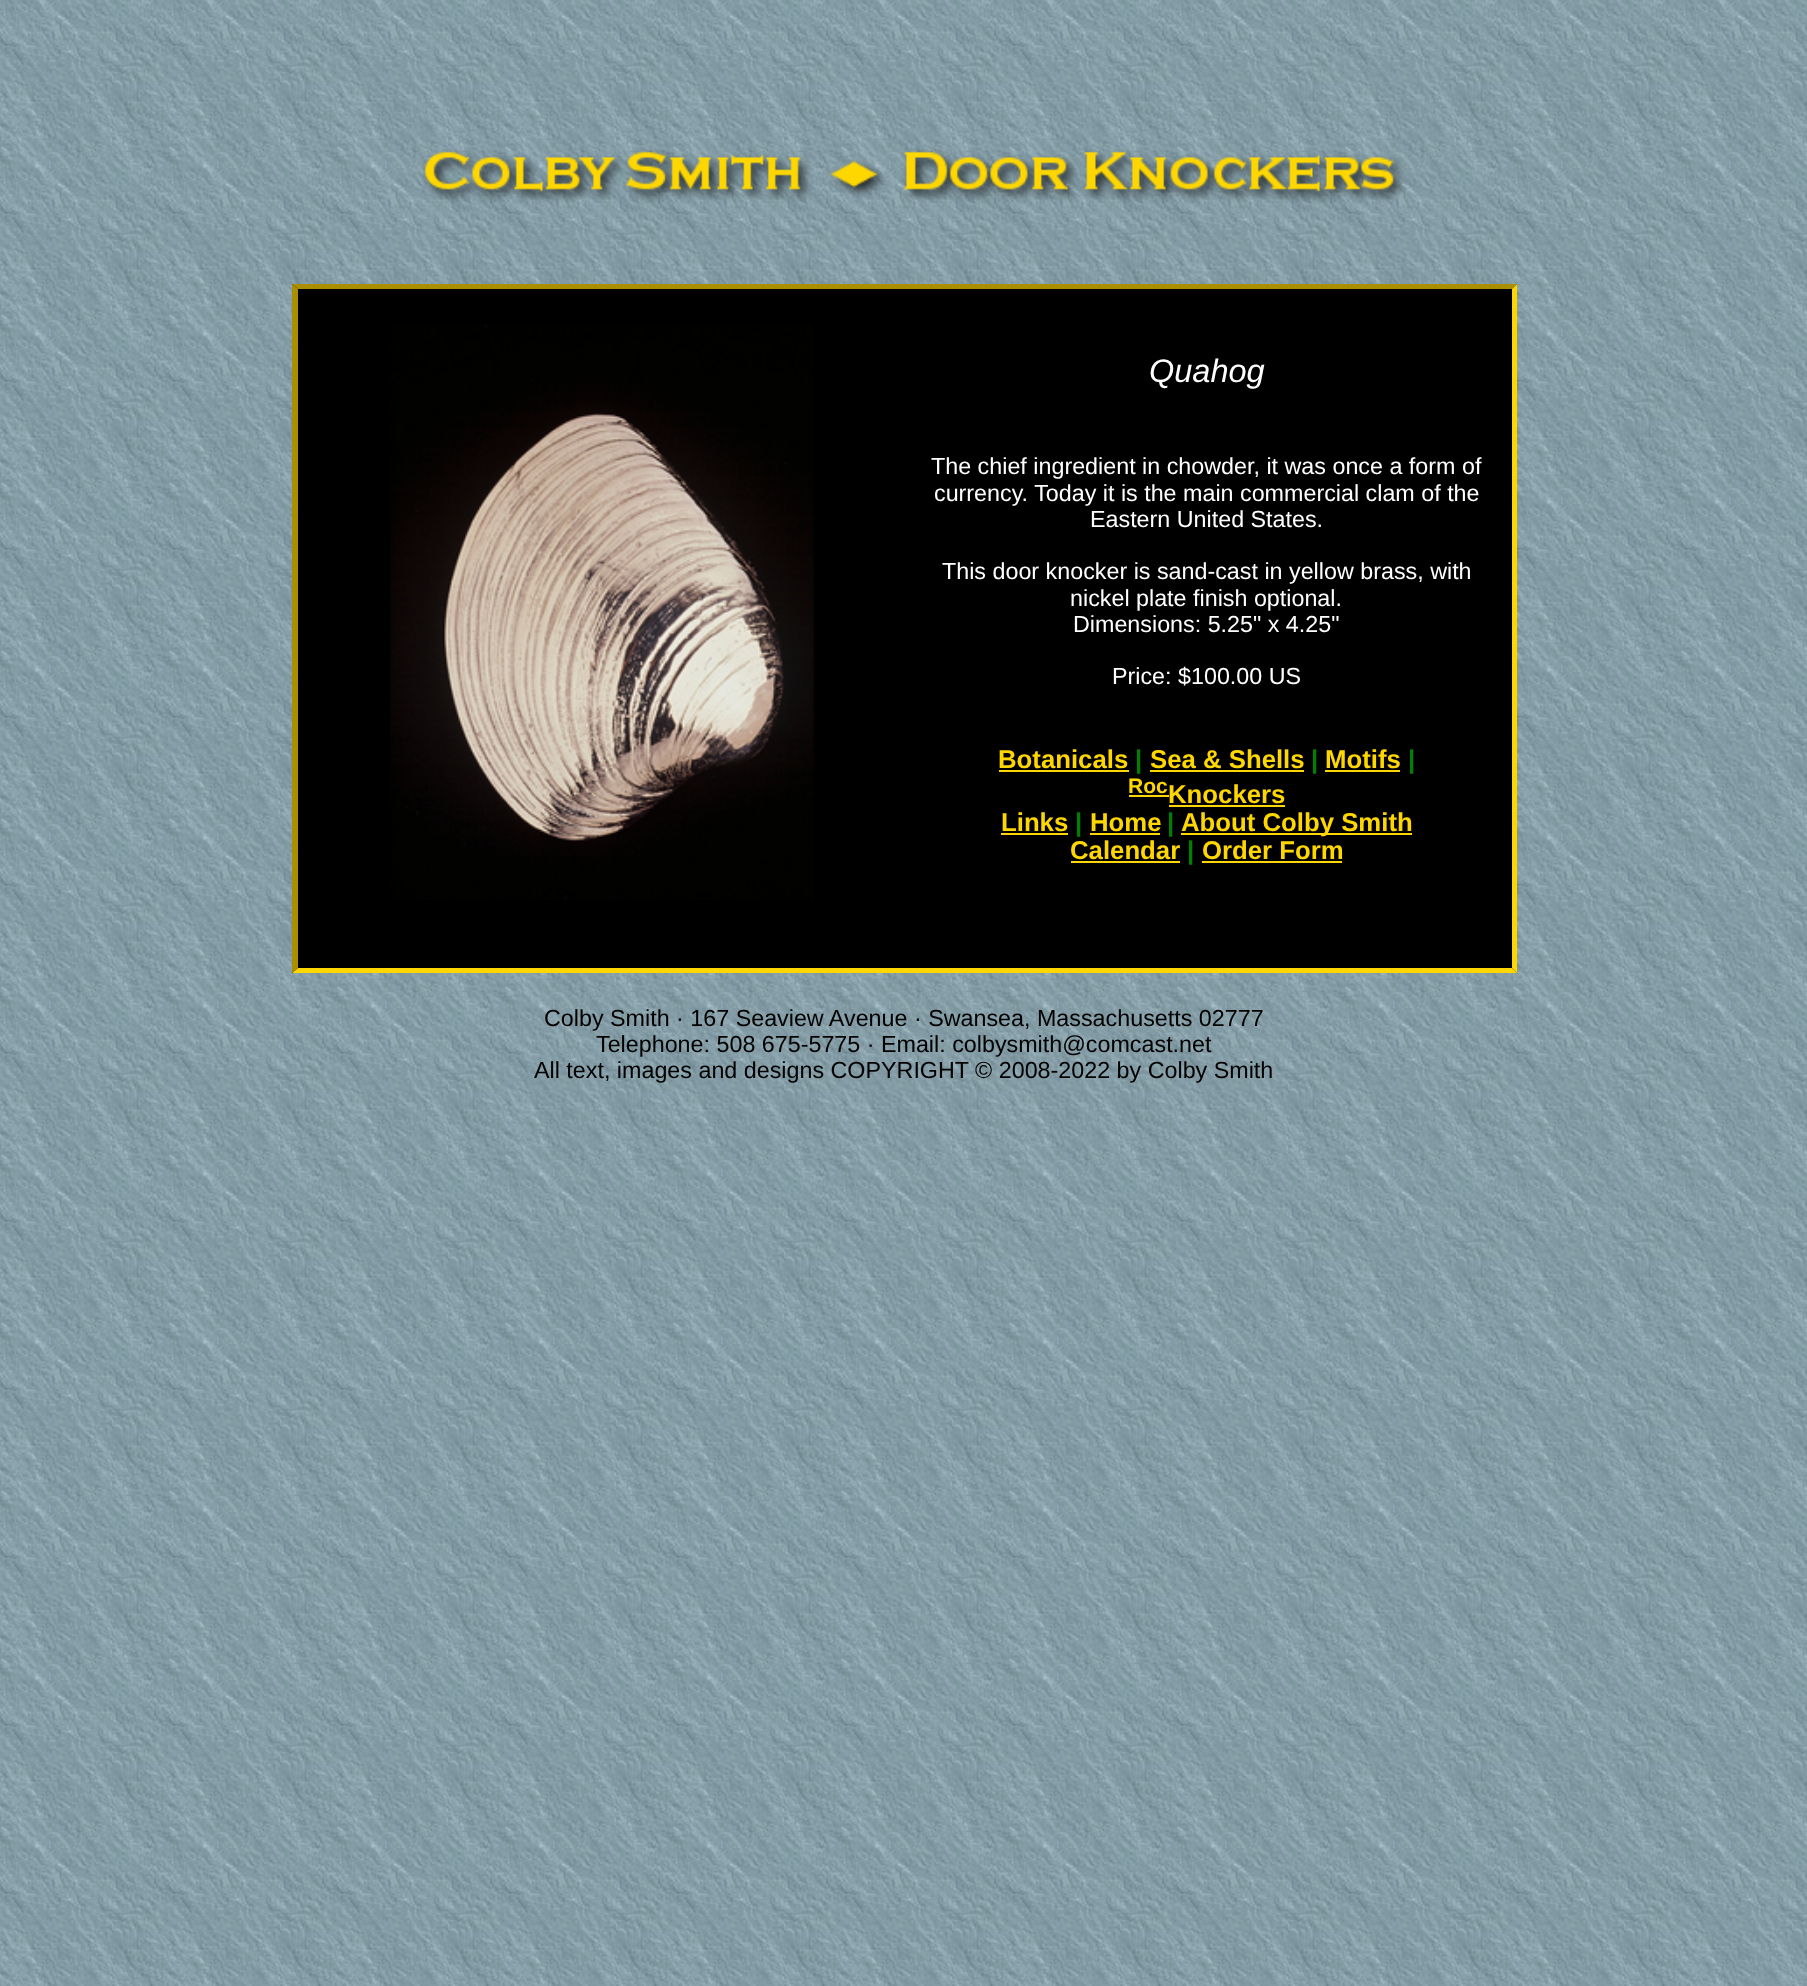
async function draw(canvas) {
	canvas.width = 1807;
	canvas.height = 1986;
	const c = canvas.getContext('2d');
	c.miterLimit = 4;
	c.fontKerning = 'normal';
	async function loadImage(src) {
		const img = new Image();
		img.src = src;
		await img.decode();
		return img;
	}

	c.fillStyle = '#fff';
	c.fillRect(0, 0, 1807, 1986);
	c.drawImage(await loadImage('img1.png'), 0, 0, 1807, 1986);
	c.drawImage(await loadImage('img2.png'), 423, 149, 983, 54);
	c.fillStyle = '#000';
	c.fillRect(292, 284, 1225, 689);
	c.fillStyle = '#aa8f00';
	c.beginPath();
	c.moveTo(292, 284);
	c.lineTo(1517, 284);
	c.lineTo(1512, 289);
	c.lineTo(298, 289);
	c.closePath();
	c.fill();
	c.fillStyle = '#ffd700';
	c.beginPath();
	c.moveTo(1517, 284);
	c.lineTo(1517, 973);
	c.lineTo(1512, 968);
	c.lineTo(1512, 289);
	c.closePath();
	c.fill();
	c.beginPath();
	c.moveTo(1517, 973);
	c.lineTo(292, 973);
	c.lineTo(298, 968);
	c.lineTo(1512, 968);
	c.closePath();
	c.fill();
	c.fillStyle = '#aa8f00';
	c.beginPath();
	c.moveTo(292, 973);
	c.lineTo(292, 284);
	c.lineTo(298, 289);
	c.lineTo(298, 968);
	c.closePath();
	c.fill();
	c.drawImage(await loadImage('img3.png'), 390, 324, 424, 576);
	c.font = 'italic 32.5px Liberation Sans';
	c.fillStyle = '#fff';
	c.fillText('Quahog', 1149, 382);
	c.font = '23.3px Liberation Sans';
	for (const [text, x, y] of [
		['The chief ingredient in chowder, it was once a form of', 931, 474],
		['currency. Today it is the main commercial clam of the', 934, 501],
		['Eastern United States.', 1090, 527],
		['This door knocker is sand-cast in yellow brass, with', 942, 579],
		['nickel plate finish optional.', 1070, 606],
		['Dimensions: 5.25" x 4.25"', 1073, 632],
		['Price: $100.00 US', 1112, 684],
	]) {
		c.fillText(text, x, y);
	}
	c.font = 'bold 25.75px Liberation Sans';
	c.fillStyle = '#ffd700';
	c.fillText('Botanicals', 998, 768);
	c.fillRect(999, 770, 130, 2);
	c.fillStyle = '#008000';
	c.fillText('|', 1135, 768);
	c.fillStyle = '#ffd700';
	c.fillText('Sea & Shells', 1150, 768);
	c.fillRect(1150, 770, 154, 2);
	c.fillStyle = '#008000';
	c.fillText('|', 1311, 768);
	c.fillStyle = '#ffd700';
	c.fillText('Motifs', 1325, 768);
	c.fillRect(1325, 770, 75, 2);
	c.fillStyle = '#008000';
	c.fillText('|', 1408, 768);
	c.font = 'bold 21px Liberation Sans';
	c.fillStyle = '#ffd700';
	c.fillText('Roc', 1128, 793);
	c.font = 'bold 25.75px Liberation Sans';
	c.fillText('Knockers', 1168, 803);
	c.fillRect(1129, 795, 40, 2);
	c.fillRect(1169, 805, 116, 2);
	c.fillText('Links', 1001, 831);
	c.fillRect(1001, 833, 67, 2);
	c.fillStyle = '#008000';
	c.fillText('|', 1075, 831);
	c.fillStyle = '#ffd700';
	c.fillText('Home', 1090, 831);
	c.fillRect(1090, 833, 70, 2);
	c.fillStyle = '#008000';
	c.fillText('|', 1167, 831);
	c.fillStyle = '#ffd700';
	c.fillRect(1181, 833, 231, 2);
	c.fillText('About Colby Smith', 1181, 831);
	c.fillText('Calendar', 1070, 859);
	c.fillRect(1071, 861, 109, 2);
	c.fillStyle = '#008000';
	c.fillText('|', 1187, 859);
	c.fillStyle = '#ffd700';
	c.fillText('Order Form', 1202, 859);
	c.fillRect(1202, 861, 140, 2);
	c.font = '23.3px Liberation Sans';
	c.fillStyle = '#000';
	for (const [text, x, y] of [
		['Colby Smith · 167 Seaview Avenue · Swansea, Massachusetts 02777', 544, 1026],
		['Telephone: 508 675-5775 · Email: colbysmith@comcast.net', 596, 1052],
		['All text, images and designs COPYRIGHT © 2008-2022 by Colby Smith', 534, 1078],
	]) {
		c.fillText(text, x, y);
	}
}

draw(document.querySelector('canvas'));
